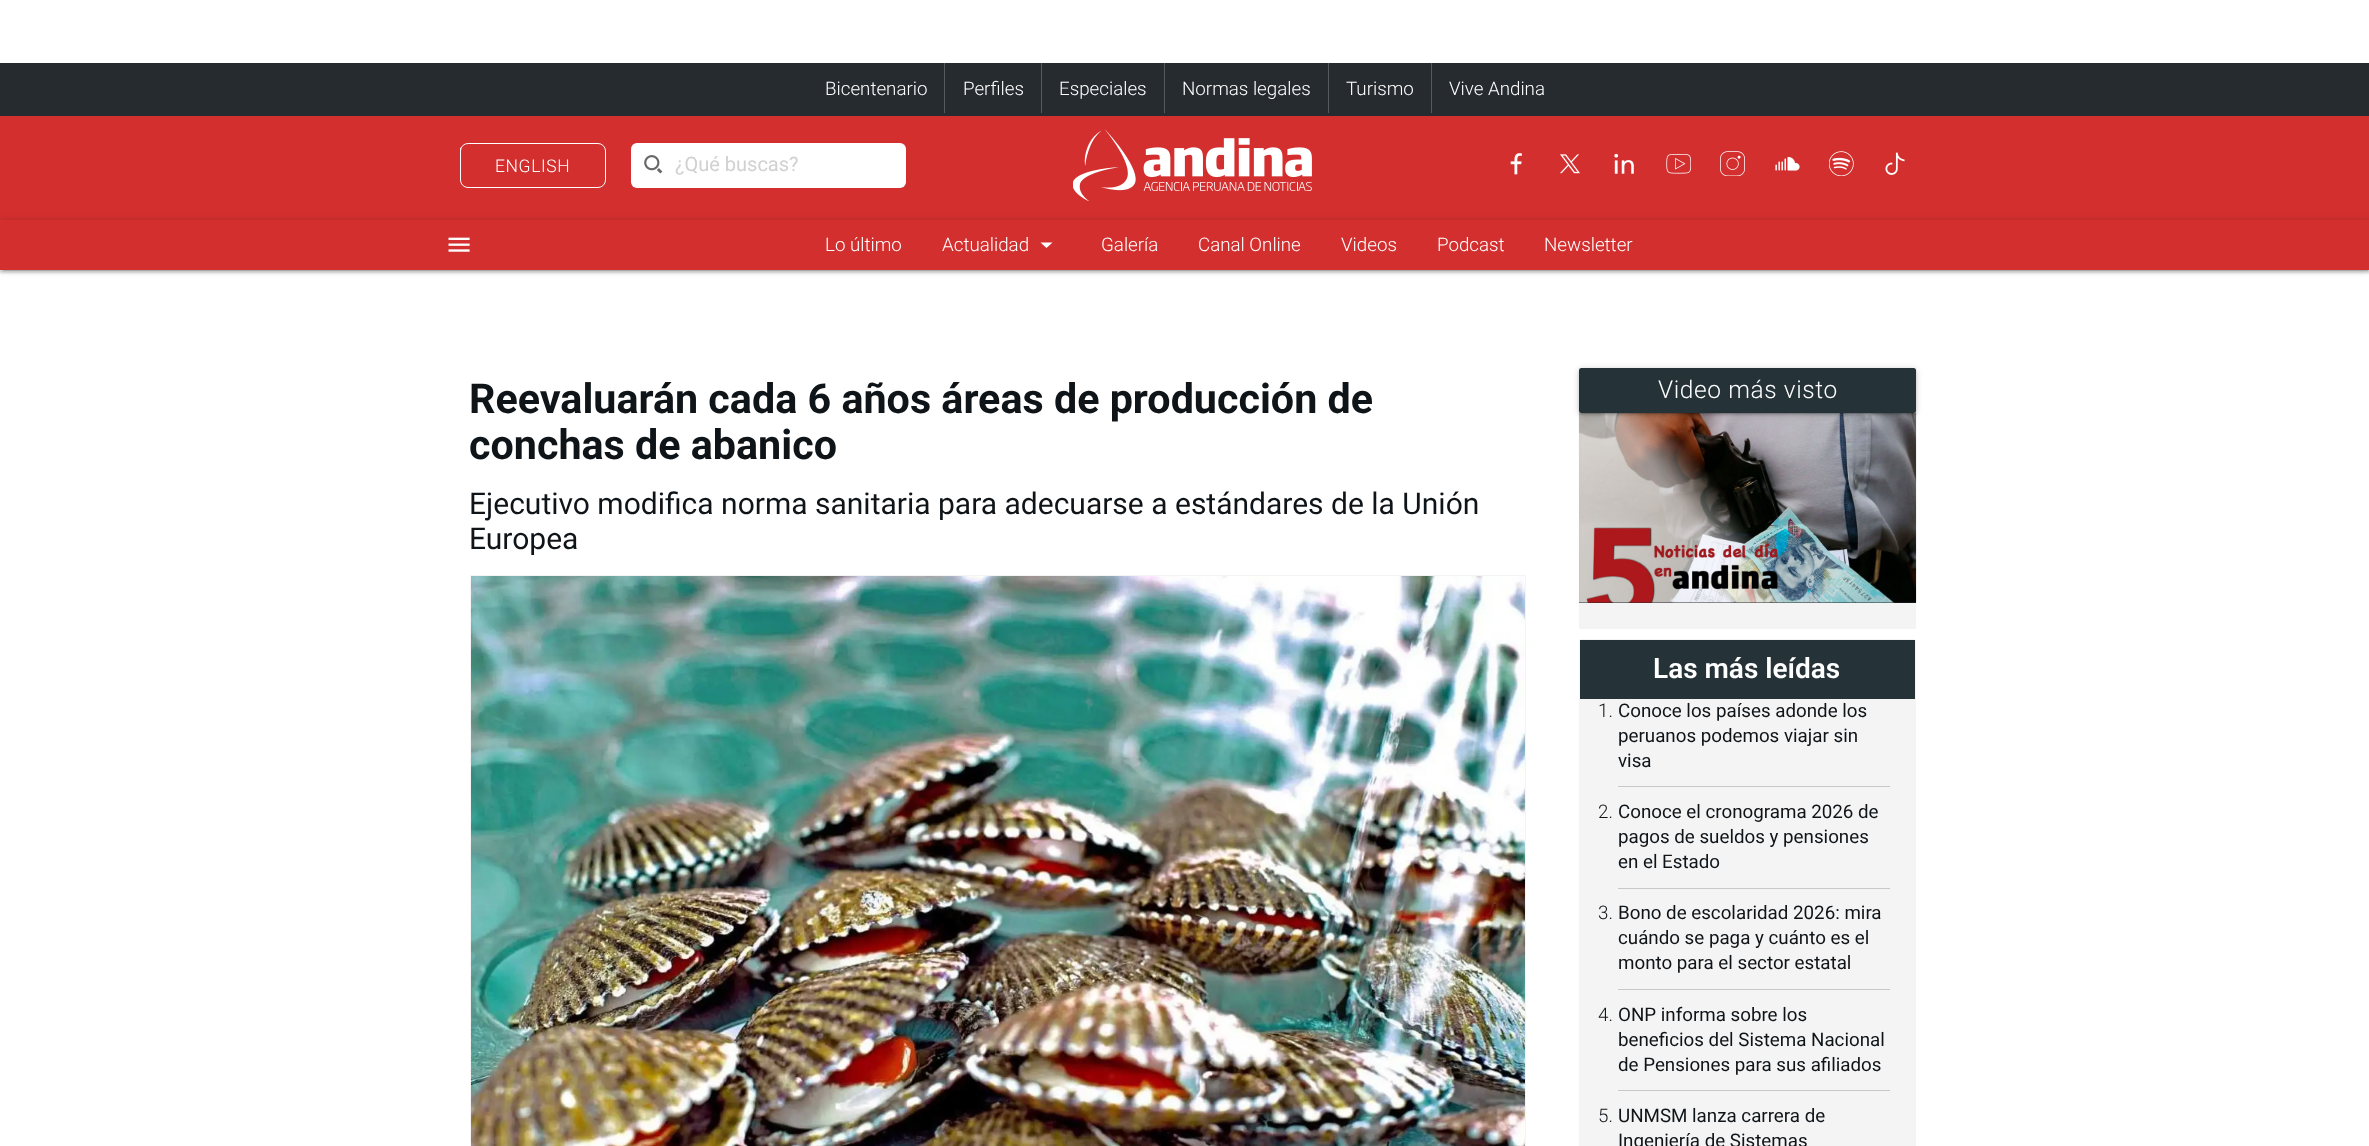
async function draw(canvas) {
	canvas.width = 2369;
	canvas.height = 1146;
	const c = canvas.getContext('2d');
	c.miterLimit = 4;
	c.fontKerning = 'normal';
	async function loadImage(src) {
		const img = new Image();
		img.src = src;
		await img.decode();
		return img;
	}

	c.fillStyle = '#fff';
	c.fillRect(0, 0, 2369, 1146);
	c.fillStyle = '#d32f2f';
	c.fillRect(0, 116, 2369, 104);
	c.fillStyle = '#262b2f';
	c.fillRect(0, 63, 2369, 53);
	c.font = '300 18.75px Roboto';
	c.fillStyle = '#fff';
	c.fillText('Bicentenario', 825, 95);
	c.fillStyle = '#565a5d';
	c.fillRect(944, 63, 1, 50);
	c.fillStyle = '#fff';
	c.fillText('Perfiles', 963, 95);
	c.fillStyle = '#565a5d';
	c.fillRect(1041, 63, 1, 50);
	c.fillStyle = '#fff';
	c.fillText('Especiales', 1059, 95);
	c.fillStyle = '#565a5d';
	c.fillRect(1164, 63, 1, 50);
	c.fillStyle = '#fff';
	c.fillText('Normas legales', 1182, 95);
	c.fillStyle = '#565a5d';
	c.fillRect(1328, 63, 1, 50);
	c.fillStyle = '#fff';
	c.fillText('Turismo', 1346, 95);
	c.fillStyle = '#565a5d';
	c.fillRect(1431, 63, 1, 50);
	c.fillStyle = '#fff';
	c.fillText('Vive Andina', 1449, 95);
	c.drawImage(await loadImage('img1.png'), 460, 147, 2, 4);
	c.drawImage(await loadImage('img2.png'), 1073, 129, 239, 72);
	c.fillStyle = '#d32f2f';
	c.beginPath();
	c.roundRect(460.5, 143.5, 145, 44, 7.5);
	c.fill();
	c.strokeStyle = '#fff';
	c.stroke();
	c.letterSpacing = '0.6px';
	c.font = '300 17.5px Roboto';
	c.fillStyle = '#fff';
	c.fillText('ENGLISH', 495, 172);
	c.beginPath();
	c.roundRect(631, 143, 275, 45, 6);
	c.fill();
	c.drawImage(await loadImage('img3.png'), 644, 155, 19, 19);
	c.letterSpacing = '0px';
	c.font = '20px Roboto';
	c.fillStyle = '#d1d1d1';
	c.fillText('¿Qué buscas?', 675, 171);
	c.drawImage(await loadImage('img4.png'), 1510, 153, 12, 22);
	c.drawImage(await loadImage('img5.png'), 1560, 154, 20, 20);
	c.drawImage(await loadImage('img6.png'), 1614, 153, 20, 21);
	c.drawImage(await loadImage('img7.png'), 1666, 153, 25, 21);
	c.drawImage(await loadImage('img8.png'), 1720, 151, 25, 25);
	c.drawImage(await loadImage('img9.png'), 1775, 156, 25, 15);
	c.drawImage(await loadImage('img10.png'), 1829, 151, 25, 25);
	c.drawImage(await loadImage('img11.png'), 1885, 152, 20, 23);
	c.fillStyle = '#00000033';
	c.filter = 'blur(3px)';
	c.beginPath();
	c.rect(0, 221, 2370, 50);
	c.fill();
	c.filter = 'none';
	c.fillStyle = '#0000001f';
	c.filter = 'blur(0.5px)';
	c.beginPath();
	c.rect(3, 226, 2365, 45);
	c.fill();
	c.filter = 'none';
	c.fillStyle = '#00000024';
	c.filter = 'blur(1px)';
	c.beginPath();
	c.rect(0, 223, 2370, 50);
	c.fill();
	c.filter = 'none';
	c.fillStyle = '#d32f2f';
	c.fillRect(0, 220, 2369, 50);
	c.drawImage(await loadImage('img12.png'), 448, 237, 22, 15);
	c.font = '300 18.75px Roboto';
	c.fillStyle = '#fff';
	c.fillText('Lo último', 825, 251);
	c.fillText('Actualidad', 942, 251);
	c.beginPath();
	c.moveTo(1040.5, 242.5);
	c.lineTo(1052.5, 242.5);
	c.lineTo(1046.5, 248);
	c.closePath();
	c.fill();
	for (const [text, x, y] of [
		['Galería', 1101, 251],
		['Canal Online', 1198, 251],
		['Videos', 1341, 251],
		['Podcast', 1437, 251],
		['Newsletter', 1544, 251],
	]) {
		c.fillText(text, x, y);
	}
	c.font = 'bold 41.25px Roboto';
	c.fillStyle = '#0f1418';
	c.fillText('Reevaluarán cada 6 años áreas de producción de', 469, 413);
	c.fillText('conchas de abanico', 469, 459);
	c.font = '30px Roboto';
	c.fillText('Ejecutivo modifica norma sanitaria para adecuarse a estándares de la Unión', 469, 514);
	c.fillText('Europea', 469, 549);
	c.strokeStyle = '#f4f4f4';
	c.strokeRect(470.5, 575.5, 1055, 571);
	c.drawImage(await loadImage('img13.png'), 471, 576, 1054, 570);
	c.fillStyle = '#f4f4f4';
	c.fillRect(1579, 368, 337, 261);
	c.fillStyle = '#262b2f';
	c.fillRect(1579, 602, 337, 1);
	c.drawImage(await loadImage('img14.png'), 1578, 412, 339, 191);
	c.fillStyle = '#00000033';
	c.filter = 'blur(3px)';
	c.beginPath();
	c.roundRect(1579, 369, 337, 45, 2.5);
	c.fill();
	c.filter = 'none';
	c.fillStyle = '#0000001f';
	c.filter = 'blur(0.5px)';
	c.beginPath();
	c.rect(1581, 374, 333, 40);
	c.fill();
	c.filter = 'none';
	c.fillStyle = '#00000024';
	c.filter = 'blur(1px)';
	c.beginPath();
	c.roundRect(1579, 370, 337, 45, 2.5);
	c.fill();
	c.filter = 'none';
	c.fillStyle = '#253238';
	c.beginPath();
	c.roundRect(1579, 368, 337, 45, 2.5);
	c.fill();
	c.letterSpacing = '0.6px';
	c.font = '300 24.5px Roboto';
	c.fillStyle = '#fff';
	c.fillText('Video más visto', 1658, 398);
	c.fillStyle = '#f4f4f4';
	c.beginPath();
	c.roundRect(1579, 639, 337, 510, 2.5);
	c.fill();
	c.fillStyle = '#253238';
	c.fillRect(1580, 640, 335, 59);
	c.letterSpacing = '0px';
	c.font = '600 28px Roboto';
	c.fillStyle = '#fff';
	c.fillText('Las más leídas', 1653, 678);
	c.font = '300 18.75px Roboto';
	c.fillStyle = '#0f1418';
	c.fillText('1.', 1598, 717);
	c.font = '18.75px Roboto';
	for (const [text, x, y] of [
		['Conoce los países adonde los', 1618, 717],
		['peruanos podemos viajar sin', 1618, 742],
		['visa', 1618, 767],
	]) {
		c.fillText(text, x, y);
	}
	c.fillStyle = '#c7c8ca';
	c.fillRect(1618, 786, 272, 1);
	c.font = '300 18.75px Roboto';
	c.fillStyle = '#0f1418';
	c.fillText('2.', 1598, 818);
	c.font = '18.75px Roboto';
	for (const [text, x, y] of [
		['Conoce el cronograma 2026 de', 1618, 818],
		['pagos de sueldos y pensiones', 1618, 843],
		['en el Estado', 1618, 868],
	]) {
		c.fillText(text, x, y);
	}
	c.fillStyle = '#c7c8ca';
	c.fillRect(1618, 888, 272, 1);
	c.font = '300 18.75px Roboto';
	c.fillStyle = '#0f1418';
	c.fillText('3.', 1598, 919);
	c.font = '18.75px Roboto';
	for (const [text, x, y] of [
		['Bono de escolaridad 2026: mira', 1618, 919],
		['cuándo se paga y cuánto es el', 1618, 944],
		['monto para el sector estatal', 1618, 969],
	]) {
		c.fillText(text, x, y);
	}
	c.fillStyle = '#c7c8ca';
	c.fillRect(1618, 989, 272, 1);
	c.font = '300 18.75px Roboto';
	c.fillStyle = '#0f1418';
	c.fillText('4.', 1598, 1021);
	c.font = '18.75px Roboto';
	for (const [text, x, y] of [
		['ONP informa sobre los', 1618, 1021],
		['beneficios del Sistema Nacional', 1618, 1046],
		['de Pensiones para sus afiliados', 1618, 1071],
	]) {
		c.fillText(text, x, y);
	}
	c.fillStyle = '#c7c8ca';
	c.fillRect(1618, 1090, 272, 1);
	c.font = '300 18.75px Roboto';
	c.fillStyle = '#0f1418';
	c.fillText('5.', 1598, 1122);
	c.font = '18.75px Roboto';
	c.fillText('UNMSM lanza carrera de', 1618, 1122);
	c.fillText('Ingeniería de Sistemas', 1618, 1147);
}

draw(document.querySelector('canvas'));
